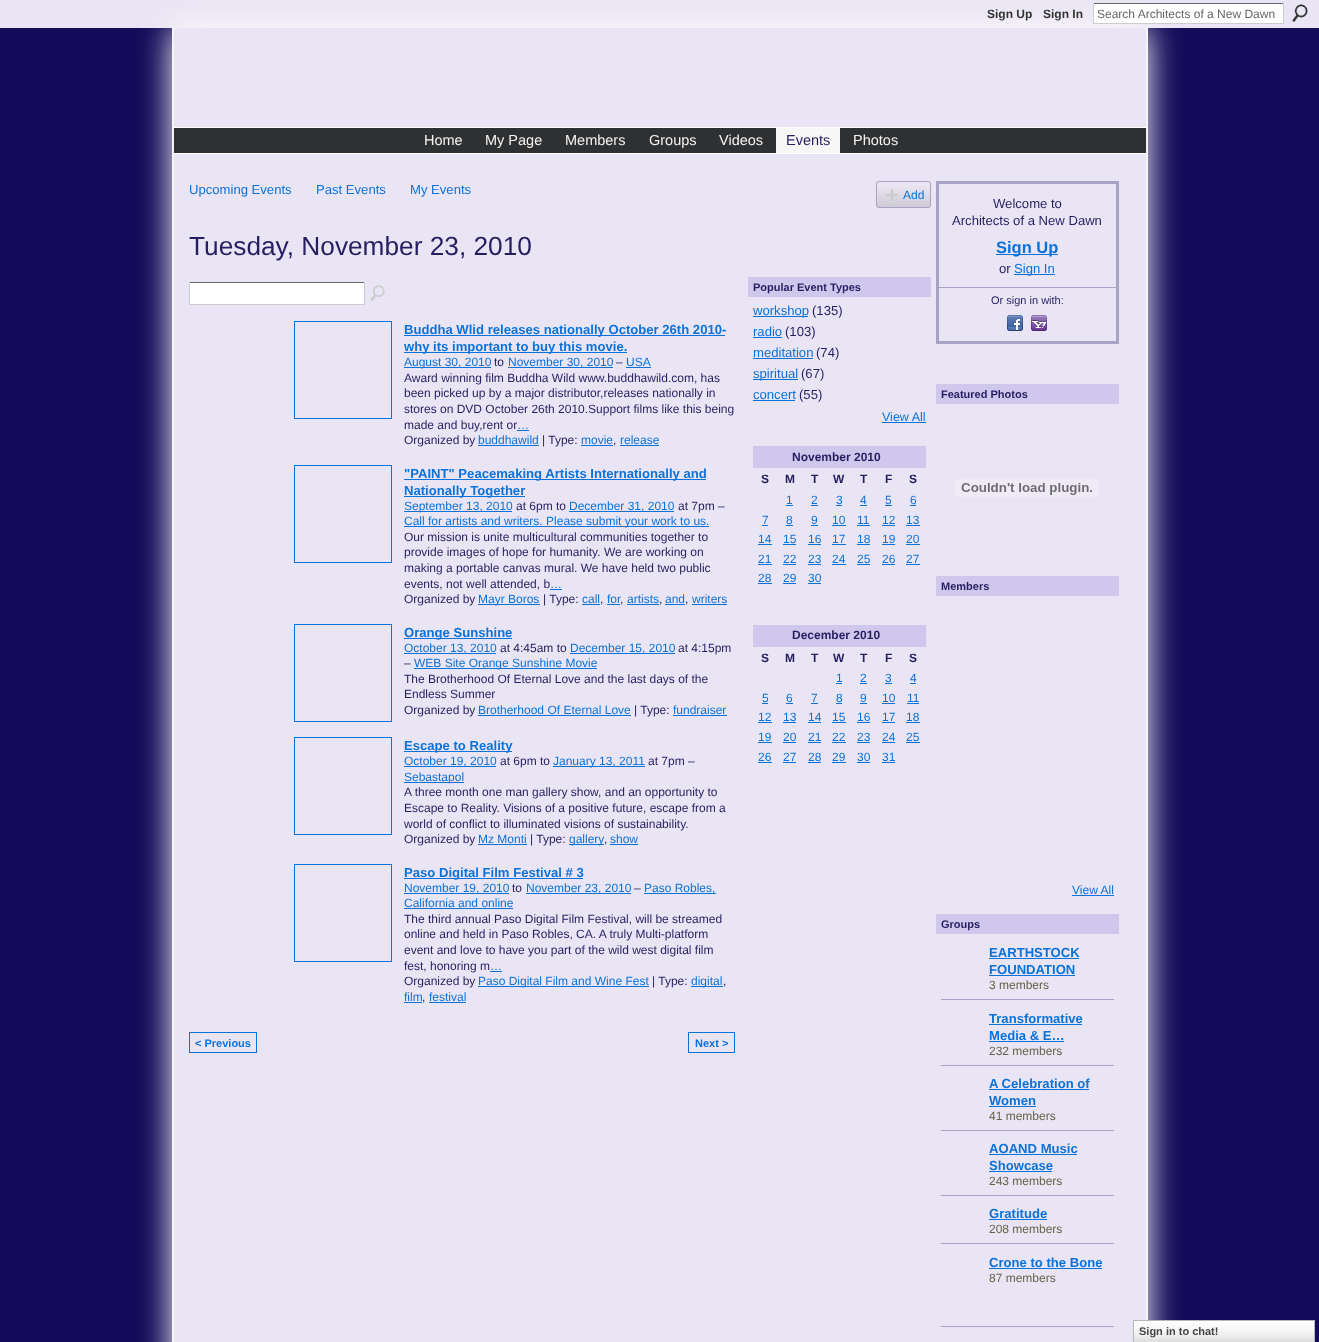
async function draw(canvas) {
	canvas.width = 1319;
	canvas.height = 1342;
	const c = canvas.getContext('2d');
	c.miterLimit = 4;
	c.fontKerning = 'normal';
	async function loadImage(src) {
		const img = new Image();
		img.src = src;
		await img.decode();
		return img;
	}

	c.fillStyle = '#140b5a';
	c.fillRect(0, 0, 1319, 1342);
	c.fillStyle = '#eae5f4';
	c.fillRect(0, 0, 1319, 28);
	c.fillStyle = '#fff';
	c.filter = 'blur(16.5px)';
	c.beginPath();
	c.rect(172, 28, 976, 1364);
	c.fill();
	c.filter = 'none';
	c.font = 'bold 12px Liberation Sans';
	c.fillStyle = '#333';
	c.fillText('Sign Up', 987, 18);
	c.fillText('Sign In', 1043, 18);
	for (const [x, y, w, h, color] of [
		[1094, 4, 189, 19, '#fff'],
		[1093, 3, 191, 1, '#666'],
		[1283, 3, 1, 21, '#ccc'],
		[1093, 23, 191, 1, '#ccc'],
		[1093, 3, 1, 21, '#ccc'],
	]) {
		c.fillStyle = color;
		c.fillRect(x, y, w, h);
	}
	c.font = '12px Liberation Sans';
	c.fillStyle = '#666';
	c.fillText('Search Architects of a New Dawn', 1097, 18);
	c.drawImage(await loadImage('img1.png'), 1292, 4, 16, 18);
	for (const [x, y, w, h, color] of [
		[174, 28, 972, 1314, '#eae5f4'],
		[1146, 28, 2, 1292, '#f4f4f4'],
		[172, 28, 2, 1314, '#f4f4f4'],
		[174, 128, 972, 25, '#2f3031'],
		[174, 127, 972, 1, '#fff'],
		[174, 153, 972, 1, '#fff'],
	]) {
		c.fillStyle = color;
		c.fillRect(x, y, w, h);
	}
	c.font = '14.5px Liberation Sans';
	c.fillStyle = '#f4f4f4';
	for (const [text, x, y] of [
		['Home', 424, 145],
		['My Page', 485, 145],
		['Members', 565, 145],
		['Groups', 649, 145],
		['Videos', 719, 145],
	]) {
		c.fillText(text, x, y);
	}
	c.fillStyle = '#f7f7f7';
	c.fillRect(776, 128, 64, 25);
	c.fillStyle = '#271e61';
	c.fillText('Events', 786, 145);
	c.fillStyle = '#f4f4f4';
	c.fillText('Photos', 853, 145);
	c.font = '13.1px Liberation Sans';
	c.fillStyle = '#0b72da';
	for (const [text, x, y] of [
		['Upcoming Events', 189, 194],
		['Past Events', 316, 194],
		['My Events', 410, 194],
	]) {
		c.fillText(text, x, y);
	}
	c.drawImage(await loadImage('img2.png'), 876, 186, 55, 22);
	c.beginPath();
	c.roundRect(876.5, 181.5, 54, 26, 2.5);
	c.strokeStyle = '#a9a3c3';
	c.stroke();
	c.drawImage(await loadImage('img3.png'), 886, 189, 12, 12);
	c.font = '12px Liberation Sans';
	c.fillText('Add', 903, 199);
	c.font = '26.25px Liberation Sans';
	c.fillStyle = '#271e61';
	c.fillText('Tuesday, November 23, 2010', 189, 255);
	for (const [x, y, w, h, color] of [
		[190, 283, 174, 21, '#fff'],
		[189, 282, 176, 1, '#666'],
		[364, 282, 1, 23, '#ccc'],
		[189, 304, 176, 1, '#ccc'],
		[189, 282, 1, 23, '#ccc'],
	]) {
		c.fillStyle = color;
		c.fillRect(x, y, w, h);
	}
	c.drawImage(await loadImage('img4.png'), 370, 285, 15, 16);
	c.strokeStyle = '#0b72da';
	c.strokeRect(294.5, 321.5, 97, 97);
	c.fillStyle = '#0b72da';
	c.fillRect(404, 335, 321, 1);
	c.font = 'bold 13.1px Liberation Sans';
	c.fillText('Buddha Wlid releases nationally October 26th 2010-', 404, 334);
	c.fillRect(404, 352, 223, 1);
	c.fillText('why its important to buy this movie.', 404, 351);
	c.fillRect(404, 367, 87, 1);
	c.font = '12px Liberation Sans';
	c.fillText('August 30, 2010', 404, 366);
	c.fillStyle = '#271e61';
	c.fillText('to', 494, 366);
	c.fillStyle = '#0b72da';
	c.fillRect(508, 367, 105, 1);
	c.fillText('November 30, 2010', 508, 366);
	c.fillStyle = '#271e61';
	c.fillText('–', 616, 366);
	c.fillStyle = '#0b72da';
	c.fillText('USA', 626, 366);
	c.fillRect(626, 367, 25, 1);
	c.fillStyle = '#271e61';
	for (const [text, x, y] of [
		['Award winning film Buddha Wild www.buddhawild.com, has', 404, 382],
		['been picked up by a major distributor,releases nationally in', 404, 397],
		['stores on DVD October 26th 2010.Support films like this being', 404, 413],
		['made and buy,rent or', 404, 429],
	]) {
		c.fillText(text, x, y);
	}
	c.fillStyle = '#0b72da';
	c.fillText('…', 517, 429);
	c.fillRect(517, 430, 12, 1);
	c.fillStyle = '#271e61';
	c.fillText('Organized by', 404, 444);
	c.fillStyle = '#0b72da';
	c.fillText('buddhawild', 478, 444);
	c.fillRect(478, 445, 61, 1);
	c.fillStyle = '#271e61';
	c.fillText('| Type:', 542, 444);
	c.fillStyle = '#0b72da';
	c.fillText('movie', 581, 444);
	c.fillRect(581, 445, 32, 1);
	c.fillStyle = '#271e61';
	c.fillText(',', 613, 444);
	c.fillStyle = '#0b72da';
	c.fillText('release', 620, 444);
	c.fillRect(620, 445, 39, 1);
	c.strokeRect(294.5, 465.5, 97, 97);
	c.fillRect(404, 479, 302, 1);
	c.font = 'bold 13.1px Liberation Sans';
	c.fillText('"PAINT" Peacemaking Artists Internationally and', 404, 478);
	c.fillRect(404, 496, 121, 1);
	c.fillText('Nationally Together', 404, 495);
	c.fillRect(404, 511, 108, 1);
	c.font = '12px Liberation Sans';
	c.fillText('September 13, 2010', 404, 510);
	c.fillStyle = '#271e61';
	c.fillText('at 6pm to', 516, 510);
	c.fillStyle = '#0b72da';
	c.fillRect(569, 511, 105, 1);
	c.fillText('December 31, 2010', 569, 510);
	c.fillStyle = '#271e61';
	c.fillText('at 7pm –', 678, 510);
	c.fillStyle = '#0b72da';
	c.fillRect(404, 526, 305, 1);
	c.fillText('Call for artists and writers. Please submit your work to us.', 404, 525);
	c.fillStyle = '#271e61';
	for (const [text, x, y] of [
		['Our mission is unite multicultural communities together to', 404, 541],
		['provide images of hope for humanity. We are working on', 404, 556],
		['making a portable canvas mural. We have held two public', 404, 572],
		['events, not well attended, b', 404, 588],
	]) {
		c.fillText(text, x, y);
	}
	c.fillStyle = '#0b72da';
	c.fillText('…', 550, 588);
	c.fillRect(550, 589, 12, 1);
	c.fillStyle = '#271e61';
	c.fillText('Organized by', 404, 603);
	c.fillStyle = '#0b72da';
	c.fillRect(478, 604, 62, 1);
	c.fillText('Mayr Boros', 478, 603);
	c.fillStyle = '#271e61';
	c.fillText('| Type:', 543, 603);
	c.fillStyle = '#0b72da';
	c.fillText('call', 582, 603);
	c.fillRect(582, 604, 18, 1);
	c.fillStyle = '#271e61';
	c.fillText(',', 600, 603);
	c.fillStyle = '#0b72da';
	c.fillText('for', 607, 603);
	c.fillRect(607, 604, 13, 1);
	c.fillStyle = '#271e61';
	c.fillText(',', 620, 603);
	c.fillStyle = '#0b72da';
	c.fillText('artists', 627, 603);
	c.fillRect(627, 604, 32, 1);
	c.fillStyle = '#271e61';
	c.fillText(',', 659, 603);
	c.fillStyle = '#0b72da';
	c.fillText('and', 665, 603);
	c.fillRect(665, 604, 20, 1);
	c.fillStyle = '#271e61';
	c.fillText(',', 685, 603);
	c.fillStyle = '#0b72da';
	c.fillText('writers', 692, 603);
	c.fillRect(692, 604, 35, 1);
	c.strokeRect(294.5, 624.5, 97, 97);
	c.fillRect(404, 638, 108, 1);
	c.font = 'bold 13.1px Liberation Sans';
	c.fillText('Orange Sunshine', 404, 637);
	c.fillRect(404, 653, 92, 1);
	c.font = '12px Liberation Sans';
	c.fillText('October 13, 2010', 404, 652);
	c.fillStyle = '#271e61';
	c.fillText('at 4:45am to', 500, 652);
	c.fillStyle = '#0b72da';
	c.fillRect(570, 653, 105, 1);
	c.fillText('December 15, 2010', 570, 652);
	c.fillStyle = '#271e61';
	c.fillText('at 4:15pm', 678, 652);
	c.fillText('–', 404, 667);
	c.fillStyle = '#0b72da';
	c.fillRect(414, 668, 183, 1);
	c.fillText('WEB Site Orange Sunshine Movie', 414, 667);
	c.fillStyle = '#271e61';
	for (const [text, x, y] of [
		['The Brotherhood Of Eternal Love and the last days of the', 404, 683],
		['Endless Summer', 404, 698],
		['Organized by', 404, 714],
	]) {
		c.fillText(text, x, y);
	}
	c.fillStyle = '#0b72da';
	c.fillText('Brotherhood Of Eternal Love', 478, 714);
	c.fillRect(478, 715, 153, 1);
	c.fillStyle = '#271e61';
	c.fillText('| Type:', 634, 714);
	c.fillStyle = '#0b72da';
	c.fillText('fundraiser', 673, 714);
	c.fillRect(673, 715, 54, 1);
	c.strokeRect(294.5, 737.5, 97, 97);
	c.fillRect(404, 751, 108, 1);
	c.font = 'bold 13.1px Liberation Sans';
	c.fillText('Escape to Reality', 404, 750);
	c.fillRect(404, 766, 92, 1);
	c.font = '12px Liberation Sans';
	c.fillText('October 19, 2010', 404, 765);
	c.fillStyle = '#271e61';
	c.fillText('at 6pm to', 500, 765);
	c.fillStyle = '#0b72da';
	c.fillRect(553, 766, 92, 1);
	c.fillText('January 13, 2011', 553, 765);
	c.fillStyle = '#271e61';
	c.fillText('at 7pm –', 648, 765);
	c.fillStyle = '#0b72da';
	c.fillRect(404, 782, 60, 1);
	c.fillText('Sebastapol', 404, 781);
	c.fillStyle = '#271e61';
	for (const [text, x, y] of [
		['A three month one man gallery show, and an opportunity to', 404, 796],
		['Escape to Reality. Visions of a positive future, escape from a', 404, 812],
		['world of conflict to illuminated visions of sustainability.', 404, 828],
		['Organized by', 404, 843],
	]) {
		c.fillText(text, x, y);
	}
	c.fillStyle = '#0b72da';
	c.fillText('Mz Monti', 478, 843);
	c.fillRect(478, 844, 49, 1);
	c.fillStyle = '#271e61';
	c.fillText('| Type:', 530, 843);
	c.fillStyle = '#0b72da';
	c.fillRect(569, 844, 35, 1);
	c.fillText('gallery', 569, 843);
	c.fillText('show', 610, 843);
	c.fillRect(610, 844, 28, 1);
	c.fillStyle = '#271e61';
	c.fillText(',', 604, 843);
	c.strokeRect(294.5, 864.5, 97, 97);
	c.fillStyle = '#0b72da';
	c.fillRect(404, 878, 179, 1);
	c.font = 'bold 13.1px Liberation Sans';
	c.fillText('Paso Digital Film Festival # 3', 404, 877);
	c.fillRect(404, 893, 105, 1);
	c.font = '12px Liberation Sans';
	c.fillText('November 19, 2010', 404, 892);
	c.fillStyle = '#271e61';
	c.fillText('to', 512, 892);
	c.fillStyle = '#0b72da';
	c.fillRect(526, 893, 105, 1);
	c.fillText('November 23, 2010', 526, 892);
	c.fillStyle = '#271e61';
	c.fillText('–', 634, 892);
	c.fillStyle = '#0b72da';
	c.fillRect(644, 893, 72, 1);
	c.fillText('Paso Robles,', 644, 892);
	c.fillText('California and online', 404, 907);
	c.fillRect(404, 908, 109, 1);
	c.fillStyle = '#271e61';
	for (const [text, x, y] of [
		['The third annual Paso Digital Film Festival, will be streamed', 404, 923],
		['online and held in Paso Robles, CA. A truly Multi-platform', 404, 938],
		['event and love to have you part of the wild west digital film', 404, 954],
		['fest, honoring m', 404, 970],
	]) {
		c.fillText(text, x, y);
	}
	c.fillStyle = '#0b72da';
	c.fillText('…', 490, 970);
	c.fillRect(490, 971, 12, 1);
	c.fillStyle = '#271e61';
	c.fillText('Organized by', 404, 985);
	c.fillStyle = '#0b72da';
	c.fillRect(478, 986, 171, 1);
	c.fillText('Paso Digital Film and Wine Fest', 478, 985);
	c.fillStyle = '#271e61';
	c.fillText('| Type:', 652, 985);
	c.fillStyle = '#0b72da';
	c.fillRect(691, 986, 32, 1);
	c.fillText('digital', 691, 985);
	c.fillStyle = '#271e61';
	c.fillText(',', 723, 985);
	c.fillStyle = '#0b72da';
	c.fillText('film', 404, 1001);
	c.fillRect(404, 1002, 18, 1);
	c.fillStyle = '#271e61';
	c.fillText(',', 422, 1001);
	c.fillStyle = '#0b72da';
	c.fillText('festival', 429, 1001);
	c.fillRect(429, 1002, 37, 1);
	c.strokeRect(189.5, 1032.5, 67, 20);
	c.font = 'bold 11px Liberation Sans';
	c.fillText('< Previous', 195, 1047);
	c.strokeRect(688.5, 1032.5, 46, 20);
	c.fillText('Next >', 695, 1047);
	c.fillStyle = '#d0c8ec';
	c.fillRect(748, 277, 183, 20);
	c.fillStyle = '#271e61';
	c.fillText('Popular Event Types', 753, 291);
	c.fillStyle = '#0b72da';
	c.fillRect(753, 316, 55, 1);
	c.font = '13.1px Liberation Sans';
	c.fillText('workshop', 753, 315);
	c.fillStyle = '#271e61';
	c.fillText('(135)', 812, 315);
	c.fillStyle = '#0b72da';
	c.fillText('radio', 753, 336);
	c.fillRect(753, 337, 29, 1);
	c.fillStyle = '#271e61';
	c.fillText('(103)', 785, 336);
	c.fillStyle = '#0b72da';
	c.fillText('meditation', 753, 357);
	c.fillRect(753, 358, 60, 1);
	c.fillStyle = '#271e61';
	c.fillText('(74)', 816, 357);
	c.fillStyle = '#0b72da';
	c.fillRect(753, 379, 45, 1);
	c.fillText('spiritual', 753, 378);
	c.fillStyle = '#271e61';
	c.fillText('(67)', 801, 378);
	c.fillStyle = '#0b72da';
	c.fillText('concert', 753, 399);
	c.fillRect(753, 400, 42, 1);
	c.fillStyle = '#271e61';
	c.fillText('(55)', 799, 399);
	c.font = '12.5px Liberation Sans';
	c.fillStyle = '#0b72da';
	c.fillText('View All', 882, 421);
	c.fillRect(882, 422, 44, 1);
	c.fillStyle = '#d0c8ec';
	c.fillRect(753, 446, 173, 22);
	c.font = 'bold 12px Liberation Sans';
	c.fillStyle = '#271e61';
	for (const [text, x, y] of [
		['November 2010', 792, 461],
		['S', 761, 483],
		['M', 785, 483],
		['T', 811, 483],
		['W', 833, 483],
		['T', 860, 483],
		['F', 885, 483],
		['S', 909, 483],
	]) {
		c.fillText(text, x, y);
	}
	c.font = '12px Liberation Sans';
	c.fillStyle = '#0b72da';
	c.fillText('1', 786, 504);
	c.fillRect(786, 505, 7, 1);
	c.fillText('2', 811, 504);
	c.fillRect(811, 505, 7, 1);
	c.fillText('3', 836, 504);
	c.fillRect(836, 505, 6, 1);
	c.fillText('4', 860, 504);
	c.fillRect(860, 505, 7, 1);
	c.fillText('5', 885, 504);
	c.fillRect(885, 505, 7, 1);
	c.fillText('6', 910, 504);
	c.fillRect(910, 505, 6, 1);
	c.fillText('7', 762, 524);
	c.fillRect(762, 525, 6, 1);
	c.fillText('8', 786, 524);
	c.fillRect(786, 525, 7, 1);
	c.fillText('9', 811, 524);
	c.fillRect(811, 525, 7, 1);
	c.fillText('10', 832, 524);
	c.fillRect(832, 525, 14, 1);
	c.fillText('11', 857, 524);
	c.fillRect(857, 525, 13, 1);
	c.fillText('12', 882, 524);
	c.fillRect(882, 525, 13, 1);
	c.fillText('13', 906, 524);
	c.fillRect(906, 525, 14, 1);
	c.fillText('14', 758, 543);
	c.fillRect(758, 544, 14, 1);
	c.fillText('15', 783, 543);
	c.fillRect(783, 544, 13, 1);
	c.fillText('16', 808, 543);
	c.fillRect(808, 544, 13, 1);
	c.fillText('17', 832, 543);
	c.fillRect(832, 544, 14, 1);
	c.fillText('18', 857, 543);
	c.fillRect(857, 544, 13, 1);
	c.fillText('19', 882, 543);
	c.fillRect(882, 544, 13, 1);
	c.fillText('20', 906, 543);
	c.fillRect(906, 544, 14, 1);
	c.fillText('21', 758, 563);
	c.fillRect(758, 564, 14, 1);
	c.fillText('22', 783, 563);
	c.fillRect(783, 564, 13, 1);
	c.fillText('23', 808, 563);
	c.fillRect(808, 564, 13, 1);
	c.fillText('24', 832, 563);
	c.fillRect(832, 564, 14, 1);
	c.fillText('25', 857, 563);
	c.fillRect(857, 564, 13, 1);
	c.fillText('26', 882, 563);
	c.fillRect(882, 564, 13, 1);
	c.fillText('27', 906, 563);
	c.fillRect(906, 564, 14, 1);
	c.fillText('28', 758, 582);
	c.fillRect(758, 583, 14, 1);
	c.fillText('29', 783, 582);
	c.fillRect(783, 583, 13, 1);
	c.fillText('30', 808, 582);
	c.fillRect(808, 583, 13, 1);
	c.fillStyle = '#d0c8ec';
	c.fillRect(753, 625, 173, 22);
	c.font = 'bold 12px Liberation Sans';
	c.fillStyle = '#271e61';
	for (const [text, x, y] of [
		['December 2010', 792, 639],
		['S', 761, 662],
		['M', 785, 662],
		['T', 811, 662],
		['W', 833, 662],
		['T', 860, 662],
		['F', 885, 662],
		['S', 909, 662],
	]) {
		c.fillText(text, x, y);
	}
	c.font = '12px Liberation Sans';
	c.fillStyle = '#0b72da';
	c.fillText('1', 836, 682);
	c.fillRect(836, 683, 6, 1);
	c.fillText('2', 860, 682);
	c.fillRect(860, 683, 7, 1);
	c.fillText('3', 885, 682);
	c.fillRect(885, 683, 7, 1);
	c.fillText('4', 910, 682);
	c.fillRect(910, 683, 6, 1);
	c.fillText('5', 762, 702);
	c.fillRect(762, 703, 6, 1);
	c.fillText('6', 786, 702);
	c.fillRect(786, 703, 7, 1);
	c.fillText('7', 811, 702);
	c.fillRect(811, 703, 7, 1);
	c.fillText('8', 836, 702);
	c.fillRect(836, 703, 6, 1);
	c.fillText('9', 860, 702);
	c.fillRect(860, 703, 7, 1);
	c.fillText('10', 882, 702);
	c.fillRect(882, 703, 13, 1);
	c.fillText('11', 907, 702);
	c.fillRect(907, 703, 12, 1);
	c.fillText('12', 758, 721);
	c.fillRect(758, 722, 14, 1);
	c.fillText('13', 783, 721);
	c.fillRect(783, 722, 13, 1);
	c.fillText('14', 808, 721);
	c.fillRect(808, 722, 13, 1);
	c.fillText('15', 832, 721);
	c.fillRect(832, 722, 14, 1);
	c.fillText('16', 857, 721);
	c.fillRect(857, 722, 13, 1);
	c.fillText('17', 882, 721);
	c.fillRect(882, 722, 13, 1);
	c.fillText('18', 906, 721);
	c.fillRect(906, 722, 14, 1);
	c.fillText('19', 758, 741);
	c.fillRect(758, 742, 14, 1);
	c.fillText('20', 783, 741);
	c.fillRect(783, 742, 13, 1);
	c.fillText('21', 808, 741);
	c.fillRect(808, 742, 13, 1);
	c.fillText('22', 832, 741);
	c.fillRect(832, 742, 14, 1);
	c.fillText('23', 857, 741);
	c.fillRect(857, 742, 13, 1);
	c.fillText('24', 882, 741);
	c.fillRect(882, 742, 13, 1);
	c.fillText('25', 906, 741);
	c.fillRect(906, 742, 14, 1);
	c.fillText('26', 758, 761);
	c.fillRect(758, 762, 14, 1);
	c.fillText('27', 783, 761);
	c.fillRect(783, 762, 13, 1);
	c.fillText('28', 808, 761);
	c.fillRect(808, 762, 13, 1);
	c.fillText('29', 832, 761);
	c.fillRect(832, 762, 14, 1);
	c.fillText('30', 857, 761);
	c.fillRect(857, 762, 13, 1);
	c.fillText('31', 882, 761);
	c.fillRect(882, 762, 13, 1);
	c.strokeStyle = '#a9a3c3';
	c.lineWidth = 3;
	c.strokeRect(937.5, 182.5, 180, 160);
	c.font = '13.1px Liberation Sans';
	c.fillStyle = '#271e61';
	c.fillText('Welcome to', 993, 208);
	c.fillText('Architects of a New Dawn', 952, 225);
	c.fillStyle = '#0b72da';
	c.fillRect(996, 254, 62, 1);
	c.font = 'bold 16.5px Liberation Sans';
	c.fillText('Sign Up', 996, 253);
	c.font = '13.1px Liberation Sans';
	c.fillStyle = '#271e61';
	c.fillText('or', 999, 273);
	c.fillStyle = '#0b72da';
	c.fillRect(1014, 274, 41, 1);
	c.fillText('Sign In', 1014, 273);
	c.fillStyle = '#a9a3c3';
	c.fillRect(939, 287, 177, 1);
	c.font = '11px Liberation Sans';
	c.fillStyle = '#271e61';
	c.fillText('Or sign in with:', 991, 304);
	c.drawImage(await loadImage('img5.png'), 1007, 315, 16, 16);
	c.drawImage(await loadImage('img6.png'), 1031, 315, 16, 16);
	c.fillStyle = '#d0c8ec';
	c.fillRect(936, 384, 183, 20);
	c.font = 'bold 11px Liberation Sans';
	c.fillStyle = '#271e61';
	c.fillText('Featured Photos', 941, 398);
	c.drawImage(await loadImage('img7.png'), 955, 479, 144, 18);
	c.fillStyle = '#d0c8ec';
	c.fillRect(936, 576, 183, 20);
	c.fillStyle = '#271e61';
	c.fillText('Members', 941, 590);
	c.font = '12px Liberation Sans';
	c.fillStyle = '#0b72da';
	c.fillText('View All', 1072, 894);
	c.fillRect(1072, 895, 42, 1);
	c.fillStyle = '#d0c8ec';
	c.fillRect(936, 914, 183, 20);
	c.font = 'bold 11px Liberation Sans';
	c.fillStyle = '#271e61';
	c.fillText('Groups', 941, 928);
	c.fillStyle = '#a9a3c3';
	c.fillRect(941, 999, 173, 1);
	c.font = 'bold 13.1px Liberation Sans';
	c.fillStyle = '#0b72da';
	c.fillText('EARTHSTOCK', 989, 957);
	c.fillRect(989, 958, 90, 1);
	c.fillText('FOUNDATION', 989, 974);
	c.fillRect(989, 975, 86, 1);
	c.font = '12px Liberation Sans';
	c.fillStyle = '#62644a';
	c.fillText('3 members', 989, 989);
	c.fillStyle = '#a9a3c3';
	c.fillRect(941, 1065, 173, 1);
	c.font = 'bold 13.1px Liberation Sans';
	c.fillStyle = '#0b72da';
	c.fillText('Transformative', 989, 1023);
	c.fillRect(989, 1024, 93, 1);
	c.fillText('Media & E…', 989, 1040);
	c.fillRect(989, 1041, 75, 1);
	c.font = '12px Liberation Sans';
	c.fillStyle = '#62644a';
	c.fillText('232 members', 989, 1055);
	c.fillStyle = '#a9a3c3';
	c.fillRect(941, 1130, 173, 1);
	c.font = 'bold 13.1px Liberation Sans';
	c.fillStyle = '#0b72da';
	c.fillText('A Celebration of', 989, 1088);
	c.fillRect(989, 1089, 100, 1);
	c.fillText('Women', 989, 1105);
	c.fillRect(989, 1106, 47, 1);
	c.font = '12px Liberation Sans';
	c.fillStyle = '#62644a';
	c.fillText('41 members', 989, 1120);
	c.fillStyle = '#a9a3c3';
	c.fillRect(941, 1195, 173, 1);
	c.font = 'bold 13.1px Liberation Sans';
	c.fillStyle = '#0b72da';
	c.fillText('AOAND Music', 989, 1153);
	c.fillRect(989, 1154, 88, 1);
	c.fillText('Showcase', 989, 1170);
	c.fillRect(989, 1171, 63, 1);
	c.font = '12px Liberation Sans';
	c.fillStyle = '#62644a';
	c.fillText('243 members', 989, 1185);
	c.fillStyle = '#a9a3c3';
	c.fillRect(941, 1243, 173, 1);
	c.font = 'bold 13.1px Liberation Sans';
	c.fillStyle = '#0b72da';
	c.fillText('Gratitude', 989, 1218);
	c.fillRect(989, 1219, 58, 1);
	c.font = '12px Liberation Sans';
	c.fillStyle = '#62644a';
	c.fillText('208 members', 989, 1233);
	c.fillStyle = '#a9a3c3';
	c.fillRect(941, 1326, 173, 1);
	c.font = 'bold 13.1px Liberation Sans';
	c.fillStyle = '#0b72da';
	c.fillText('Crone to the Bone', 989, 1267);
	c.fillRect(989, 1268, 113, 1);
	c.font = '12px Liberation Sans';
	c.fillStyle = '#62644a';
	c.fillText('87 members', 989, 1282);
	c.drawImage(await loadImage('img8.png'), 1134, 1321, 180, 21);
	c.strokeStyle = '#b7b7b7';
	c.lineWidth = 1;
	c.strokeRect(1133.5, 1320.5, 181, 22);
	c.font = 'bold 11px Liberation Sans';
	c.fillStyle = '#454545';
	c.fillText('Sign in to chat!', 1139, 1335);
}

draw(document.querySelector('canvas'));
